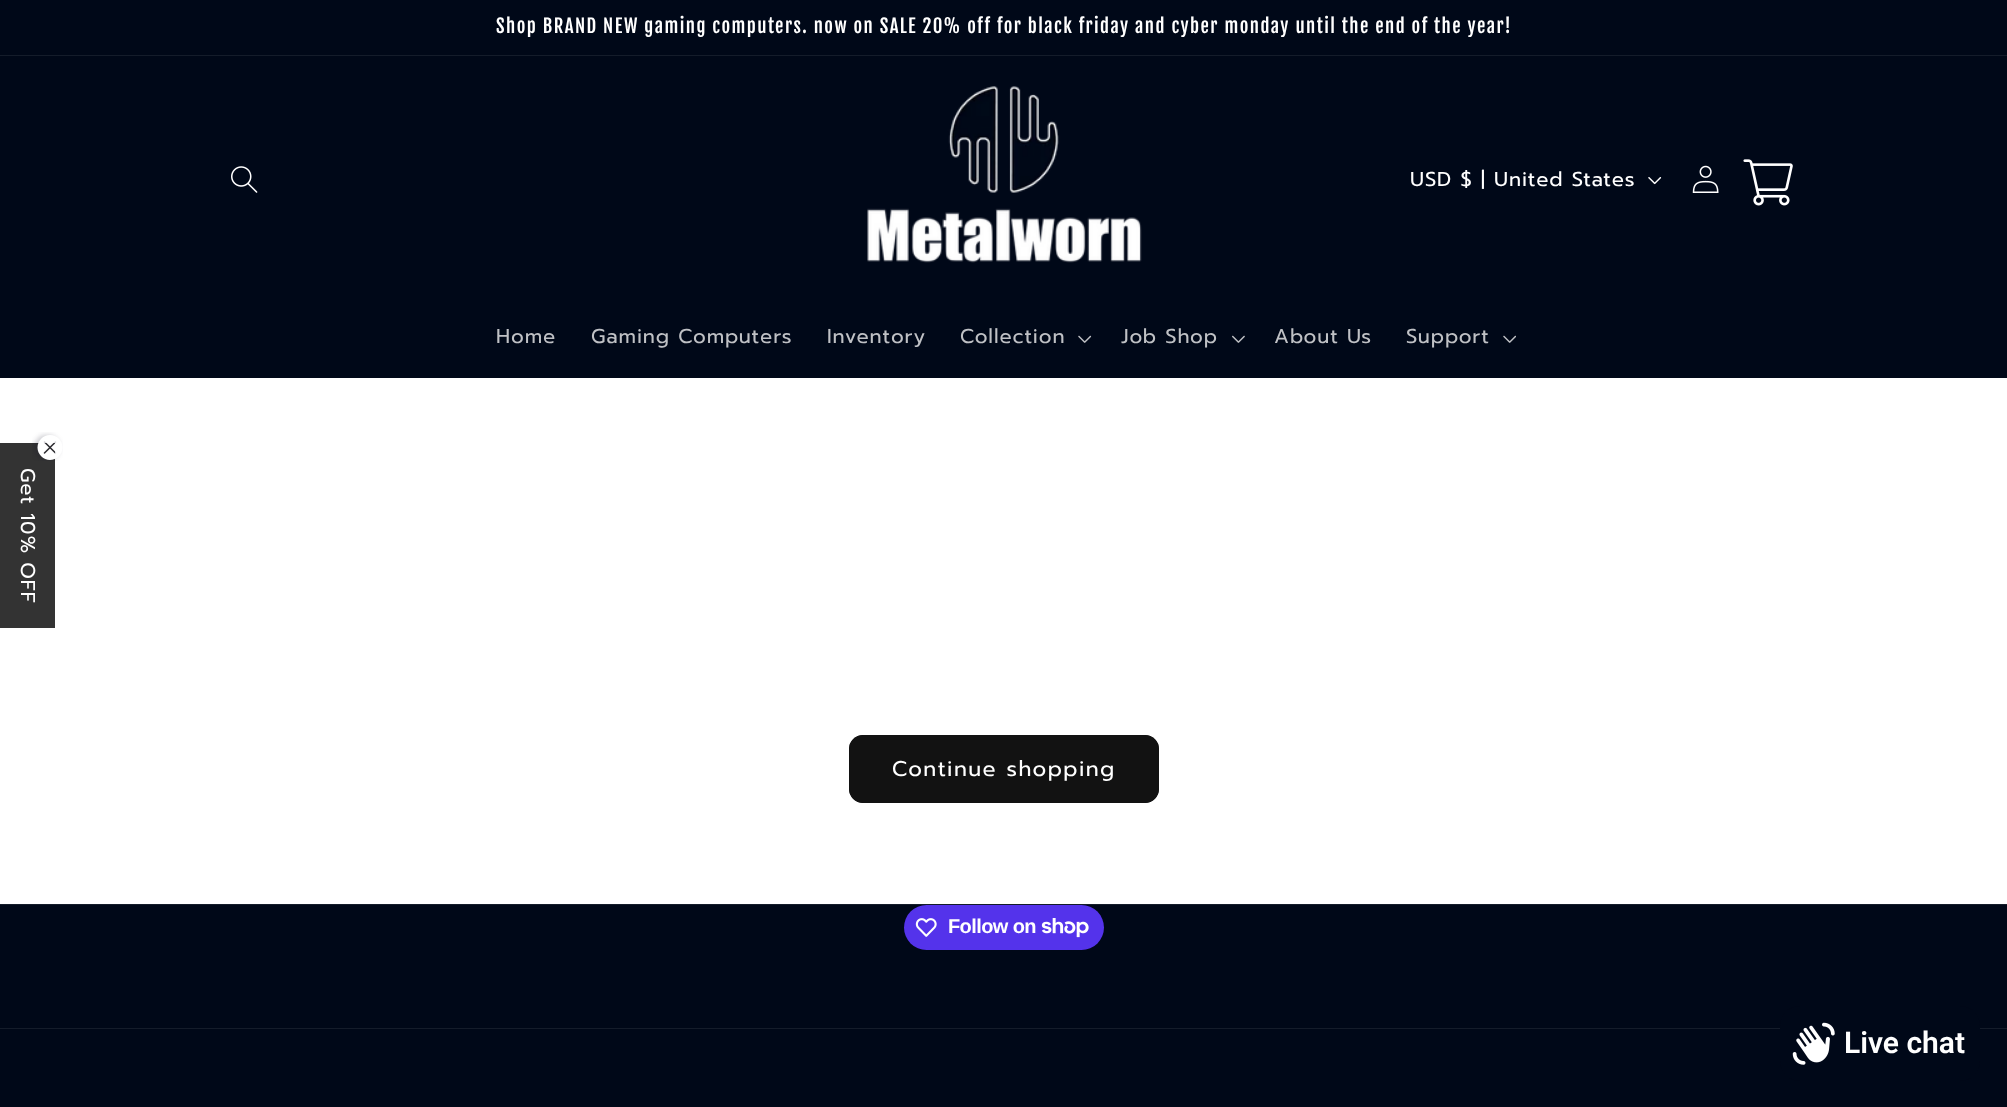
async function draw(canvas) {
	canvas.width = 2007;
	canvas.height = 1107;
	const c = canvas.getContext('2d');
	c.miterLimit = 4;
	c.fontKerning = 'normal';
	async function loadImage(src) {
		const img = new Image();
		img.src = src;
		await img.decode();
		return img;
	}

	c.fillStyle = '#fff';
	c.fillRect(0, 0, 2007, 1107);
	c.fillStyle = '#000818';
	c.fillRect(0, 0, 2007, 55);
	c.fillStyle = '#141c2a';
	c.fillRect(0, 55, 2007, 1);
	c.letterSpacing = '1.44px';
	c.font = '18.7px Fjalla One';
	c.fillStyle = '#fff';
	c.fillText('Shop BRAND NEW gaming computers. now on SALE 20% off for black friday and cyber monday until the end of the year!', 496, 33);
	c.fillStyle = '#000818';
	c.fillRect(0, 56, 2007, 322);
	c.drawImage(await loadImage('img1.png'), 231, 166, 27, 27);
	c.drawImage(await loadImage('img2.png'), 867, 86, 275, 177);
	c.letterSpacing = '0.9px';
	c.font = '20.1px Prompt';
	c.fillStyle = '#fff';
	c.fillText('USD $ | United States', 1410, 186);
	c.drawImage(await loadImage('img3.png'), 1648, 177, 14, 8);
	c.drawImage(await loadImage('img4.png'), 1692, 165, 27, 28);
	c.drawImage(await loadImage('img5.png'), 1743, 159, 50, 47);
	c.fillStyle = '#bfc1c5';
	for (const [text, x, y] of [
		['Home', 496, 343],
		['Gaming Computers', 591, 343],
		['Inventory', 827, 343],
		['Collection', 960, 343],
	]) {
		c.fillText(text, x, y);
	}
	c.drawImage(await loadImage('img6.png'), 1078, 335, 14, 8);
	c.fillText('Job Shop', 1121, 343);
	c.drawImage(await loadImage('img7.png'), 1232, 335, 13, 8);
	c.fillText('About Us', 1274, 343);
	c.fillText('Support', 1406, 343);
	c.drawImage(await loadImage('img8.png'), 1503, 335, 13, 8);
	c.fillStyle = '#333';
	c.fillRect(0, 443, 55, 185);
	c.drawImage(await loadImage('img9.png'), 32, 432, 31, 29);
	c.font = '20px Prompt';
	c.fillStyle = '#fff';
	c.save();
	c.translate(21, 468);
	c.rotate(90 * Math.PI / 180);
	c.fillText('Get 10% OFF', 0, 0);
	c.restore();
	c.fillStyle = '#121212';
	c.beginPath();
	c.roundRect(849, 735, 310, 68, 14);
	c.fill();
	c.beginPath();
	c.roundRect(849.5, 735.5, 309, 67, 13.5);
	c.strokeStyle = '#121212';
	c.stroke();
	c.letterSpacing = '1.44px';
	c.font = '21.5px Prompt';
	c.fillStyle = '#fff';
	c.fillText('Continue shopping', 892, 776);
	c.fillStyle = '#000818';
	c.fillRect(0, 905, 2007, 202);
	c.fillStyle = '#141c2a';
	c.fillRect(0, 904, 2007, 1);
	c.fillStyle = '#5433eb';
	c.beginPath();
	c.roundRect(904, 905, 200, 45, 22.5);
	c.fill();
	c.drawImage(await loadImage('img10.png'), 915, 918, 22, 19);
	c.letterSpacing = '-0.6px';
	c.font = 'bold 20px Liberation Sans';
	c.fillStyle = '#fff';
	c.fillText('Follow on', 948, 933);
	c.drawImage(await loadImage('img11.png'), 1041, 918, 48, 20);
	c.fillStyle = '#141c2a';
	c.fillRect(0, 1028, 2007, 1);
	c.fillStyle = '#000818';
	c.beginPath();
	c.roundRect(1780, 1006, 200, 75, 20);
	c.fill();
	c.drawImage(await loadImage('img12.png'), 1792, 1022, 43, 43);
	c.letterSpacing = '0px';
	c.font = '600 30px Roboto';
	c.fillStyle = '#fff';
	c.fillText('Live chat', 1844, 1053);
}

draw(document.querySelector('canvas'));
